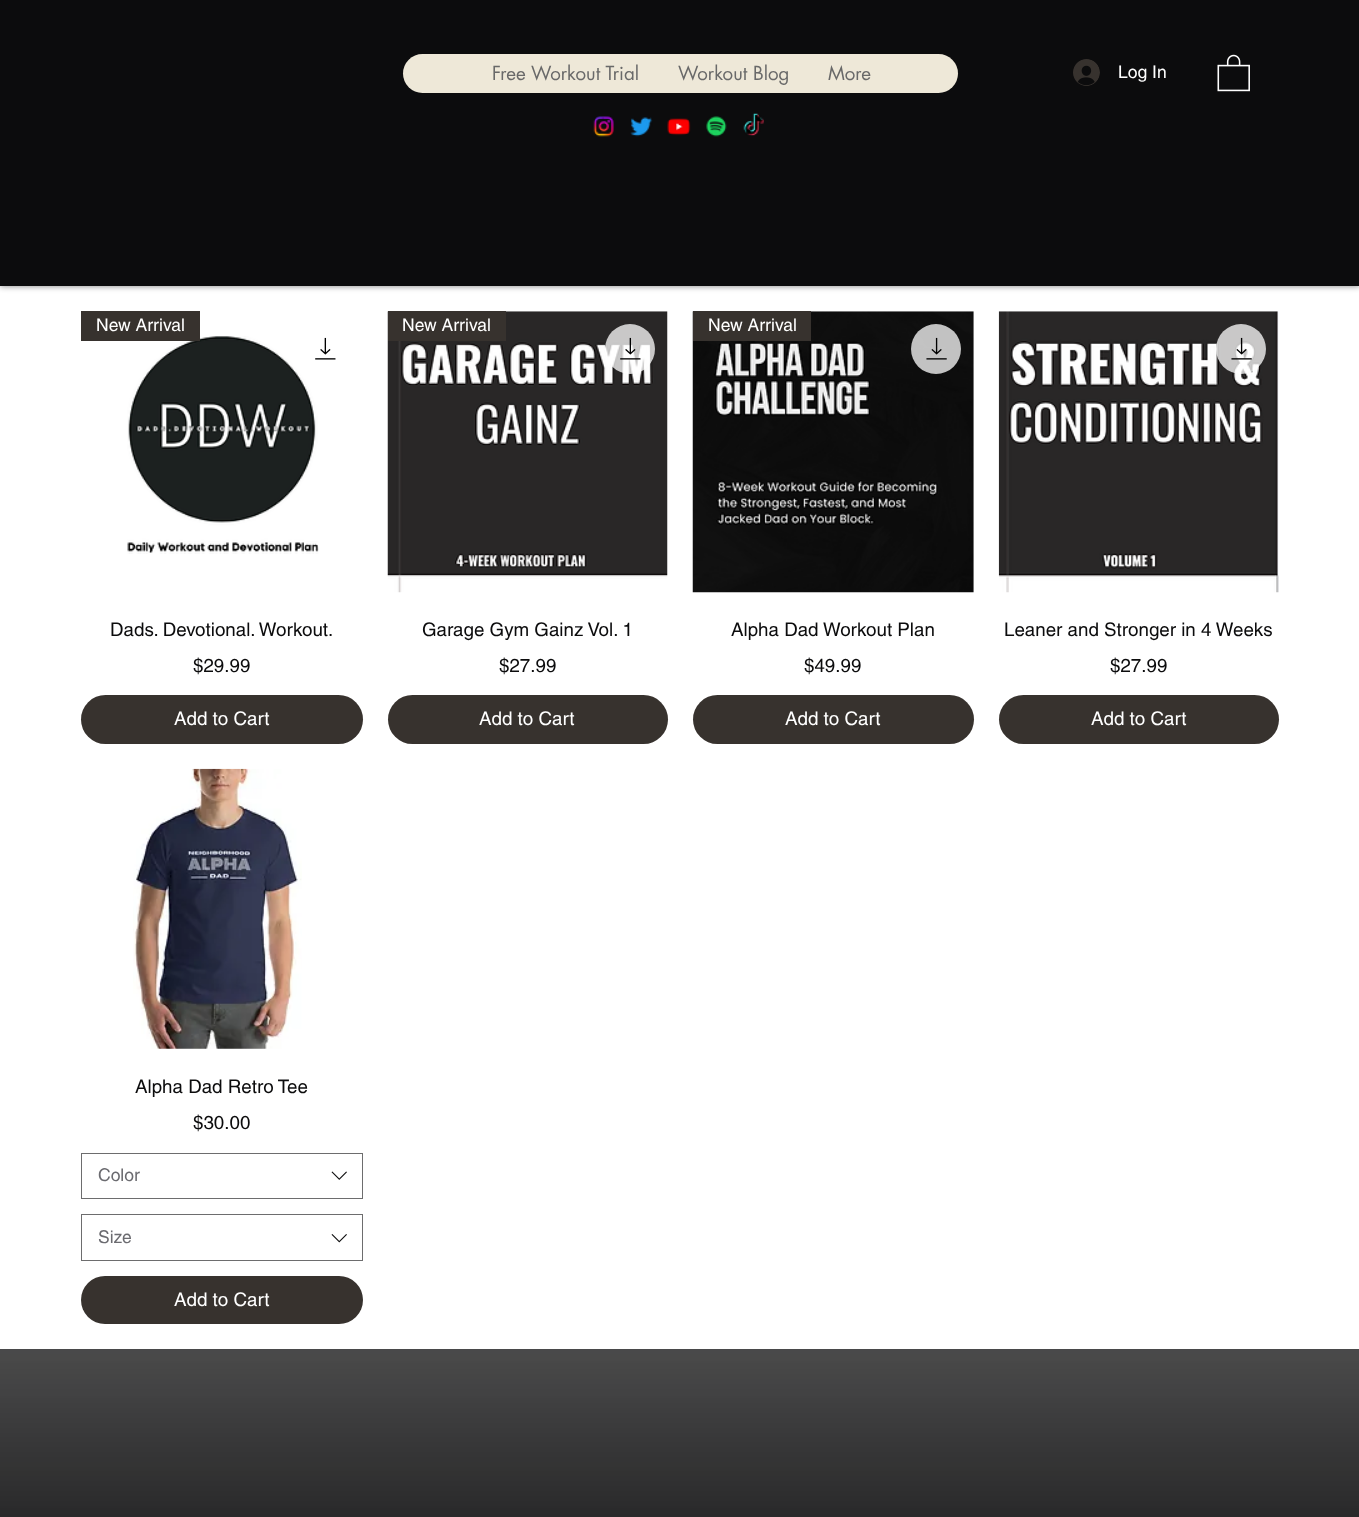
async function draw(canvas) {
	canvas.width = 1359;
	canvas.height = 1517;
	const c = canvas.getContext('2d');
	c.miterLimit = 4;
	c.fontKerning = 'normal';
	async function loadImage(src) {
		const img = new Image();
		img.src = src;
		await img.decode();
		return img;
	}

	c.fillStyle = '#fff';
	c.fillRect(0, 0, 1359, 1517);
	c.fillStyle = '#00000080';
	c.filter = 'blur(3px)';
	c.beginPath();
	c.rect(0, 0, 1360, 286);
	c.fill();
	c.filter = 'none';
	c.fillStyle = '#0c0c0d';
	c.fillRect(0, 0, 1359, 286);
	c.fillStyle = '#eee8d8';
	c.beginPath();
	c.roundRect(403, 54, 555, 39, 19.5);
	c.fill();
	c.font = '18.75px futura';
	c.fillStyle = '#696969';
	for (const [text, x, y] of [
		['Free Workout Trial', 492, 80],
		['Workout Blog', 678, 80],
		['More', 828, 80],
	]) {
		c.fillText(text, x, y);
	}
	c.drawImage(await loadImage('img1.png'), 593, 116, 21, 21);
	c.drawImage(await loadImage('img2.png'), 630, 117, 23, 20);
	c.drawImage(await loadImage('img3.png'), 667, 118, 24, 18);
	c.drawImage(await loadImage('img4.png'), 706, 116, 21, 21);
	c.drawImage(await loadImage('img5.png'), 743, 113, 21, 23);
	c.drawImage(await loadImage('img6.png'), 1073, 59, 27, 27);
	c.font = '17.5px helvetica';
	c.fillStyle = '#fff';
	c.fillText('Log In', 1118, 78);
	c.drawImage(await loadImage('img7.png'), 1217, 54, 33, 38);
	c.drawImage(await loadImage('img8.png'), 127, 336, 192, 218);
	c.fillStyle = '#37322e';
	c.fillRect(81, 311, 119, 30);
	c.fillStyle = '#fff';
	c.fillText('New Arrival', 96, 331);
	c.drawImage(await loadImage('img9.png'), 315, 337, 21, 23);
	c.font = '18.75px helvetica';
	c.fillStyle = '#0c0c0d';
	c.fillText('Dads. Devotional. Workout.', 110, 636);
	c.fillText('$29.99', 193, 672);
	c.fillStyle = '#37322e';
	c.beginPath();
	c.roundRect(81, 695, 282, 49, 24.5);
	c.fill();
	c.fillStyle = '#fff';
	c.fillText('Add to Cart', 174, 725);
	c.drawImage(await loadImage('img10.png'), 387, 311, 281, 282);
	c.fillStyle = '#ffffffbf';
	c.beginPath();
	c.arc(630, 349, 25, 0, 2 * Math.PI);
	c.fill();
	c.drawImage(await loadImage('img11.png'), 620, 337, 21, 23);
	c.fillStyle = '#37322e';
	c.fillRect(388, 311, 118, 30);
	c.font = '17.5px helvetica';
	c.fillStyle = '#fff';
	c.fillText('New Arrival', 402, 331);
	c.font = '18.75px helvetica';
	c.fillStyle = '#0c0c0d';
	c.fillText('Garage Gym Gainz Vol. 1', 422, 636);
	c.fillText('$27.99', 499, 672);
	c.fillStyle = '#37322e';
	c.beginPath();
	c.roundRect(388, 695, 280, 49, 24.5);
	c.fill();
	c.fillStyle = '#fff';
	c.fillText('Add to Cart', 479, 725);
	c.drawImage(await loadImage('img12.png'), 692, 311, 282, 282);
	c.fillStyle = '#ffffffbf';
	c.beginPath();
	c.arc(936, 349, 25, 0, 2 * Math.PI);
	c.fill();
	c.drawImage(await loadImage('img13.png'), 926, 337, 21, 23);
	c.fillStyle = '#37322e';
	c.fillRect(693, 311, 118, 30);
	c.font = '17.5px helvetica';
	c.fillStyle = '#fff';
	c.fillText('New Arrival', 708, 331);
	c.font = '18.75px helvetica';
	c.fillStyle = '#0c0c0d';
	c.fillText('Alpha Dad Workout Plan', 731, 636);
	c.fillText('$49.99', 804, 672);
	c.fillStyle = '#37322e';
	c.beginPath();
	c.roundRect(693, 695, 281, 49, 24.5);
	c.fill();
	c.fillStyle = '#fff';
	c.fillText('Add to Cart', 785, 725);
	c.drawImage(await loadImage('img14.png'), 998, 311, 281, 282);
	c.fillStyle = '#ffffffbf';
	c.beginPath();
	c.arc(1241, 349, 25, 0, 2 * Math.PI);
	c.fill();
	c.drawImage(await loadImage('img15.png'), 1231, 337, 21, 23);
	c.fillStyle = '#0c0c0d';
	c.fillText('Leaner and Stronger in 4 Weeks', 1004, 636);
	c.fillText('$27.99', 1110, 672);
	c.fillStyle = '#37322e';
	c.beginPath();
	c.roundRect(999, 695, 280, 49, 24.5);
	c.fill();
	c.fillStyle = '#fff';
	c.fillText('Add to Cart', 1091, 725);
	c.drawImage(await loadImage('img16.png'), 133, 768, 169, 281);
	c.fillStyle = '#0c0c0d';
	c.fillText('Alpha Dad Retro Tee', 135, 1093);
	c.fillText('$30.00', 193, 1129);
	c.strokeStyle = '#6d6d6e';
	c.strokeRect(81.5, 1153.5, 281, 45);
	c.font = '17.5px helvetica';
	c.fillStyle = '#6b6b70';
	c.fillText('Color', 98, 1181);
	c.drawImage(await loadImage('img17.png'), 331, 1171, 16, 9);
	c.strokeRect(81.5, 1214.5, 281, 46);
	c.fillText('Size', 98, 1243);
	c.drawImage(await loadImage('img18.png'), 331, 1234, 16, 9);
	c.fillStyle = '#37322e';
	c.beginPath();
	c.roundRect(81, 1276, 282, 48, 24);
	c.fill();
	c.font = '18.75px helvetica';
	c.fillStyle = '#fff';
	c.fillText('Add to Cart', 174, 1306);
	c.fillStyle = '#0c0c0d';
	c.fillRect(0, 1349, 1359, 168);
	c.drawImage(await loadImage('img19.png'), 0, 1349, 1359, 168);
}

draw(document.querySelector('canvas'));
